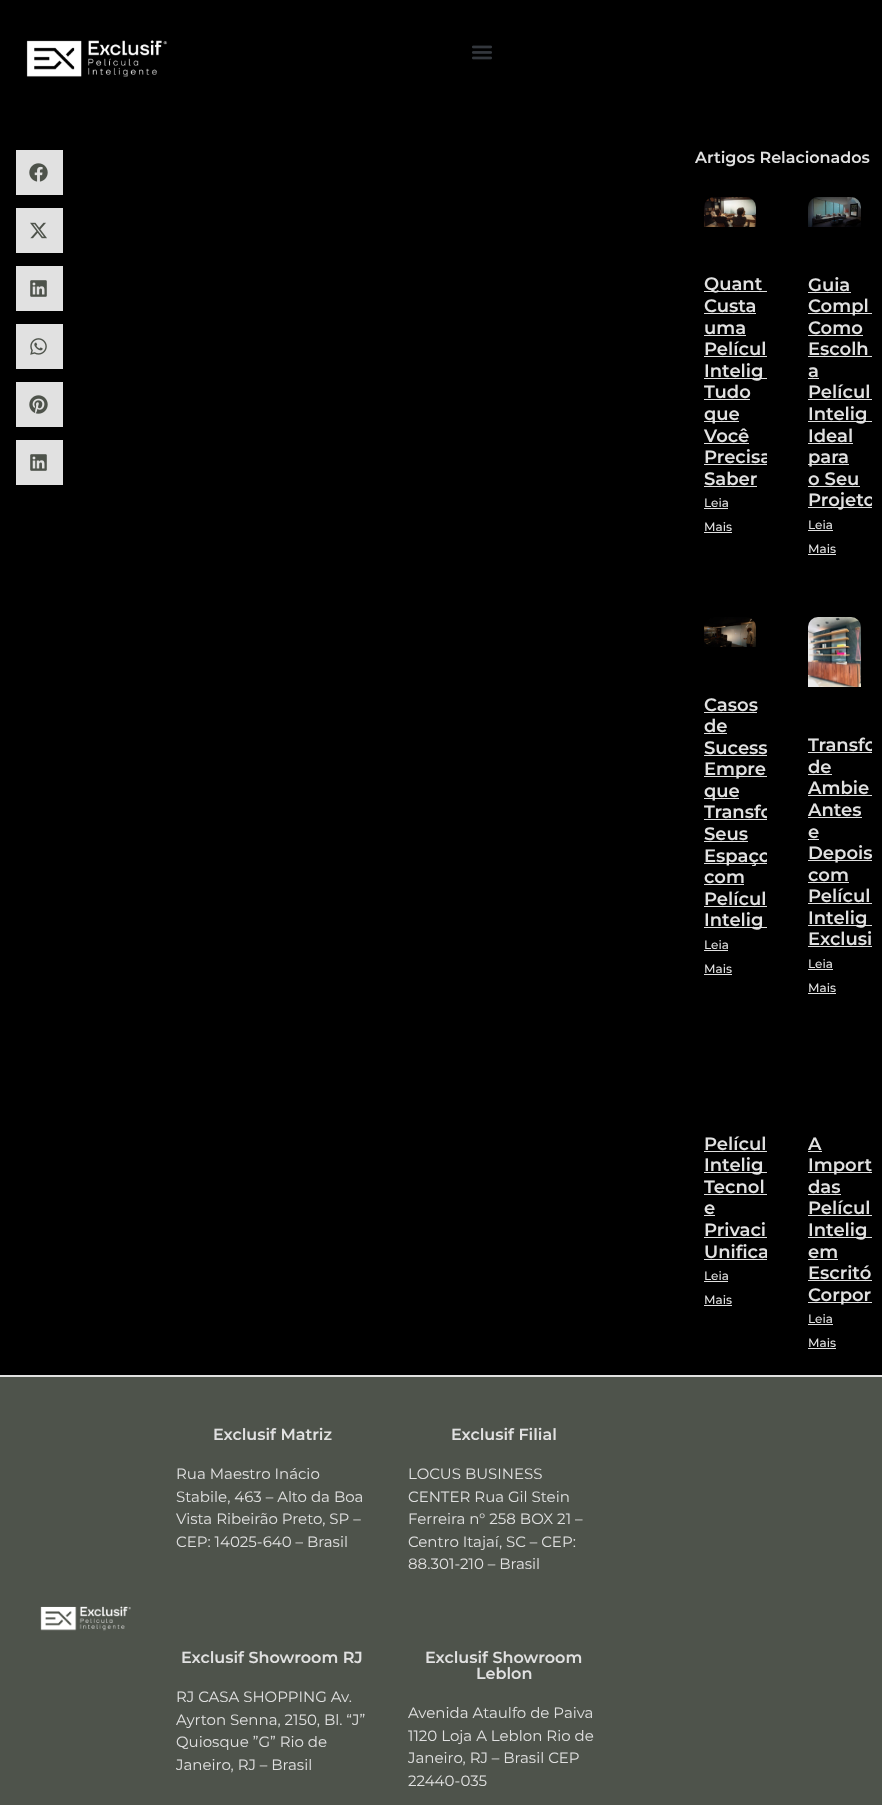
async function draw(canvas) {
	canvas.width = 882;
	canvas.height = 1805;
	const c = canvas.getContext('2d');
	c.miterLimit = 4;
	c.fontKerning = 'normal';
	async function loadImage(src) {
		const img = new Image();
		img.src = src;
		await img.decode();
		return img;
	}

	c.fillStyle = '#000';
	c.fillRect(0, 0, 882, 1805);
	c.drawImage(await loadImage('img1.png'), 26, 40, 142, 37);
	c.drawImage(await loadImage('img2.png'), 472, 45, 20, 15);
	c.strokeStyle = '#e1e1e1';
	c.lineWidth = 2;
	c.strokeRect(17, 151, 45, 43);
	c.fillStyle = '#e1e1e1';
	c.fillRect(18, 152, 43, 41);
	c.drawImage(await loadImage('img3.png'), 29, 163, 19, 19);
	c.strokeRect(17, 209, 45, 43);
	c.fillRect(18, 210, 43, 41);
	c.drawImage(await loadImage('img4.png'), 30, 222, 17, 17);
	c.strokeRect(17, 267, 45, 43);
	c.fillRect(18, 268, 43, 41);
	c.drawImage(await loadImage('img5.png'), 30, 280, 17, 17);
	c.strokeRect(17, 325, 45, 43);
	c.fillRect(18, 326, 43, 41);
	c.drawImage(await loadImage('img6.png'), 30, 338, 17, 17);
	c.strokeRect(17, 383, 45, 43);
	c.fillRect(18, 384, 43, 41);
	c.drawImage(await loadImage('img7.png'), 29, 395, 19, 19);
	c.strokeRect(17, 441, 45, 43);
	c.fillRect(18, 442, 43, 41);
	c.drawImage(await loadImage('img5.png'), 30, 454, 17, 17);
	c.font = '600 16px Montserrat';
	c.fillText('Artigos Relacionados', 695, 163);
	c.drawImage(await loadImage('img8.png'), 704, 197, 52, 30);
	c.fillRect(704, 291, 63, 1);
	c.font = '600 18px Montserrat';
	c.fillText('Quant', 704, 290);
	c.fillText('Custa', 704, 312);
	c.fillRect(704, 313, 52, 1);
	c.fillText('uma', 704, 334);
	c.fillRect(704, 335, 42, 1);
	c.fillText('Películ', 704, 355);
	c.fillRect(704, 356, 63, 1);
	c.fillRect(704, 378, 63, 1);
	c.fillText('Intelig', 704, 377);
	c.fillText('Tudo', 704, 398);
	c.fillRect(704, 399, 46, 1);
	c.fillRect(704, 421, 35, 1);
	c.fillText('que', 704, 420);
	c.fillText('Você', 704, 442);
	c.fillRect(704, 443, 45, 1);
	c.save();
	c.beginPath();
	c.rect(693, 186, 74, 385);
	c.clip();
	c.fillText('Precisa', 704, 463);
	c.restore();
	c.fillRect(704, 464, 63, 1);
	c.fillText('Saber', 704, 485);
	c.fillRect(704, 486, 53, 1);
	c.font = '500 12px Montserrat';
	c.fillText('Leia', 704, 507);
	c.fillRect(704, 508, 24, 1);
	c.fillText('Mais', 704, 531);
	c.fillRect(704, 532, 28, 1);
	c.drawImage(await loadImage('img9.png'), 808, 197, 53, 30);
	c.font = '600 18px Montserrat';
	c.fillText('Guia', 808, 291);
	c.fillRect(808, 292, 43, 1);
	c.fillRect(808, 313, 64, 1);
	c.fillText('Compl', 808, 312);
	c.fillText('Como', 808, 334);
	c.fillRect(808, 335, 55, 1);
	c.fillText('Escolh', 808, 355);
	c.fillRect(808, 356, 64, 1);
	c.fillText('a', 808, 377);
	c.fillRect(808, 378, 11, 1);
	c.fillText('Películ', 808, 398);
	c.fillRect(808, 399, 64, 1);
	c.fillRect(808, 421, 64, 1);
	c.fillText('Intelig', 808, 420);
	c.fillText('Ideal', 808, 442);
	c.fillRect(808, 443, 45, 1);
	c.fillRect(808, 464, 41, 1);
	c.fillText('para', 808, 463);
	c.fillText('o Seu', 808, 485);
	c.fillRect(808, 486, 52, 1);
	c.fillRect(808, 507, 64, 1);
	c.save();
	c.beginPath();
	c.rect(797, 186, 75, 385);
	c.clip();
	c.fillText('Projeto', 808, 506);
	c.restore();
	c.font = '500 12px Montserrat';
	c.fillText('Leia', 808, 529);
	c.fillRect(808, 530, 25, 1);
	c.fillText('Mais', 808, 553);
	c.fillRect(808, 554, 28, 1);
	c.drawImage(await loadImage('img10.png'), 704, 617, 52, 30);
	c.font = '600 18px Montserrat';
	c.fillText('Casos', 704, 711);
	c.fillRect(704, 712, 53, 1);
	c.fillText('de', 704, 732);
	c.fillRect(704, 733, 23, 1);
	c.fillText('Sucess', 704, 754);
	c.fillRect(704, 755, 63, 1);
	c.fillRect(704, 776, 63, 1);
	c.fillText('Empre', 704, 775);
	c.fillRect(704, 798, 35, 1);
	c.fillText('que', 704, 797);
	c.save();
	c.beginPath();
	c.rect(693, 606, 74, 404);
	c.clip();
	c.fillText('Transfo', 704, 818);
	c.restore();
	c.fillRect(704, 819, 63, 1);
	c.fillText('Seus', 704, 840);
	c.fillRect(704, 841, 44, 1);
	c.fillRect(704, 863, 63, 1);
	c.save();
	c.beginPath();
	c.rect(693, 606, 74, 404);
	c.clip();
	c.fillText('Espaço', 704, 862);
	c.restore();
	c.fillText('com', 704, 883);
	c.fillRect(704, 884, 40, 1);
	c.fillText('Películ', 704, 905);
	c.fillRect(704, 906, 63, 1);
	c.fillRect(704, 927, 63, 1);
	c.fillText('Intelig', 704, 926);
	c.font = '500 12px Montserrat';
	c.fillText('Leia', 704, 949);
	c.fillRect(704, 950, 24, 1);
	c.fillText('Mais', 704, 973);
	c.fillRect(704, 974, 28, 1);
	c.drawImage(await loadImage('img11.png'), 808, 617, 53, 70);
	c.save();
	c.beginPath();
	c.rect(797, 606, 75, 404);
	c.clip();
	c.font = '600 18px Montserrat';
	c.fillText('Transfo', 808, 751);
	c.restore();
	c.fillRect(808, 752, 64, 1);
	c.font = '600 18px Montserrat';
	c.fillText('de', 808, 773);
	c.fillRect(808, 774, 24, 1);
	c.fillText('Ambie', 808, 794);
	c.fillRect(808, 795, 64, 1);
	c.fillText('Antes', 808, 816);
	c.fillRect(808, 817, 54, 1);
	c.fillText('e', 808, 838);
	c.fillRect(808, 839, 11, 1);
	c.fillRect(808, 860, 64, 1);
	c.fillText('Depois', 808, 859);
	c.fillText('com', 808, 881);
	c.fillRect(808, 882, 41, 1);
	c.fillText('Películ', 808, 902);
	c.fillRect(808, 903, 64, 1);
	c.fillRect(808, 925, 64, 1);
	c.fillText('Intelig', 808, 924);
	c.fillText('Exclusi', 808, 945);
	c.fillRect(808, 946, 64, 1);
	c.font = '500 12px Montserrat';
	c.fillText('Leia', 808, 968);
	c.fillRect(808, 969, 25, 1);
	c.fillText('Mais', 808, 992);
	c.fillRect(808, 993, 28, 1);
	c.font = '600 18px Montserrat';
	c.fillText('Películ', 704, 1150);
	c.fillRect(704, 1151, 63, 1);
	c.fillRect(704, 1172, 63, 1);
	c.fillText('Intelig', 704, 1171);
	c.fillText('Tecnol', 704, 1193);
	c.fillRect(704, 1194, 63, 1);
	c.fillText('e', 704, 1214);
	c.fillRect(704, 1215, 11, 1);
	c.fillText('Privaci', 704, 1236);
	c.fillRect(704, 1237, 63, 1);
	c.save();
	c.beginPath();
	c.rect(693, 1045, 74, 320);
	c.clip();
	c.fillText('Unifica', 704, 1258);
	c.restore();
	c.fillRect(704, 1259, 63, 1);
	c.font = '500 12px Montserrat';
	c.fillText('Leia', 704, 1280);
	c.fillRect(704, 1281, 24, 1);
	c.fillText('Mais', 704, 1304);
	c.fillRect(704, 1305, 28, 1);
	c.font = '600 18px Montserrat';
	c.fillText('A', 808, 1150);
	c.fillRect(808, 1151, 14, 1);
	c.fillRect(808, 1172, 64, 1);
	c.fillText('Import', 808, 1171);
	c.fillText('das', 808, 1193);
	c.fillRect(808, 1194, 33, 1);
	c.fillText('Películ', 808, 1214);
	c.fillRect(808, 1215, 64, 1);
	c.fillRect(808, 1237, 64, 1);
	c.fillText('Intelig', 808, 1236);
	c.fillText('em', 808, 1258);
	c.fillRect(808, 1259, 30, 1);
	c.fillText('Escritó', 808, 1279);
	c.fillRect(808, 1280, 64, 1);
	c.fillRect(808, 1302, 64, 1);
	c.fillText('Corpor', 808, 1301);
	c.font = '500 12px Montserrat';
	c.fillText('Leia', 808, 1323);
	c.fillRect(808, 1324, 25, 1);
	c.fillText('Mais', 808, 1347);
	for (const [x, y, w, h, color] of [
		[808, 1348, 28, 1, '#e1e1e1'],
		[0, 1377, 882, 428, '#4e534b'],
		[0, 1375, 882, 2, '#e1e1e1'],
	]) {
		c.fillStyle = color;
		c.fillRect(x, y, w, h);
	}
	c.drawImage(await loadImage('img12.png'), 40, 1606, 91, 25);
	c.font = '600 16px Montserrat';
	c.fillText('Exclusif Matriz', 213, 1440);
	c.font = '15px Montserrat';
	for (const [text, x, y] of [
		['Rua Maestro Inácio', 176, 1479],
		['Stabile, 463 – Alto da Boa', 176, 1502],
		['Vista Ribeirão Preto, SP –', 176, 1524],
		['CEP: 14025-640 – Brasil', 176, 1547],
	]) {
		c.fillText(text, x, y);
	}
	c.font = '600 16px Montserrat';
	c.fillText('Exclusif Filial', 451, 1440);
	c.font = '15px Montserrat';
	for (const [text, x, y] of [
		['LOCUS BUSINESS', 408, 1479],
		['CENTER Rua Gil Stein', 408, 1502],
		['Ferreira n° 258 BOX 21 –', 408, 1524],
		['Centro Itajaí, SC – CEP:', 408, 1547],
		['88.301-210 – Brasil', 408, 1569],
	]) {
		c.fillText(text, x, y);
	}
	c.font = '600 16px Montserrat';
	c.fillText('Exclusif Showroom RJ', 181, 1663);
	c.font = '15px Montserrat';
	for (const [text, x, y] of [
		['RJ CASA SHOPPING Av.', 176, 1702],
		['Ayrton Senna, 2150, Bl. “J”', 176, 1725],
		['Quiosque ”G” Rio de', 176, 1747],
		['Janeiro, RJ – Brasil', 176, 1770],
	]) {
		c.fillText(text, x, y);
	}
	c.font = '600 16px Montserrat';
	c.fillText('Exclusif Showroom', 425, 1663);
	c.fillText('Leblon', 476, 1679);
	c.font = '15px Montserrat';
	for (const [text, x, y] of [
		['Avenida Ataulfo de Paiva', 408, 1718],
		['1120 Loja A Leblon Rio de', 408, 1741],
		['Janeiro, RJ – Brasil CEP', 408, 1763],
		['22440-035', 408, 1786],
	]) {
		c.fillText(text, x, y);
	}
}

draw(document.querySelector('canvas'));
